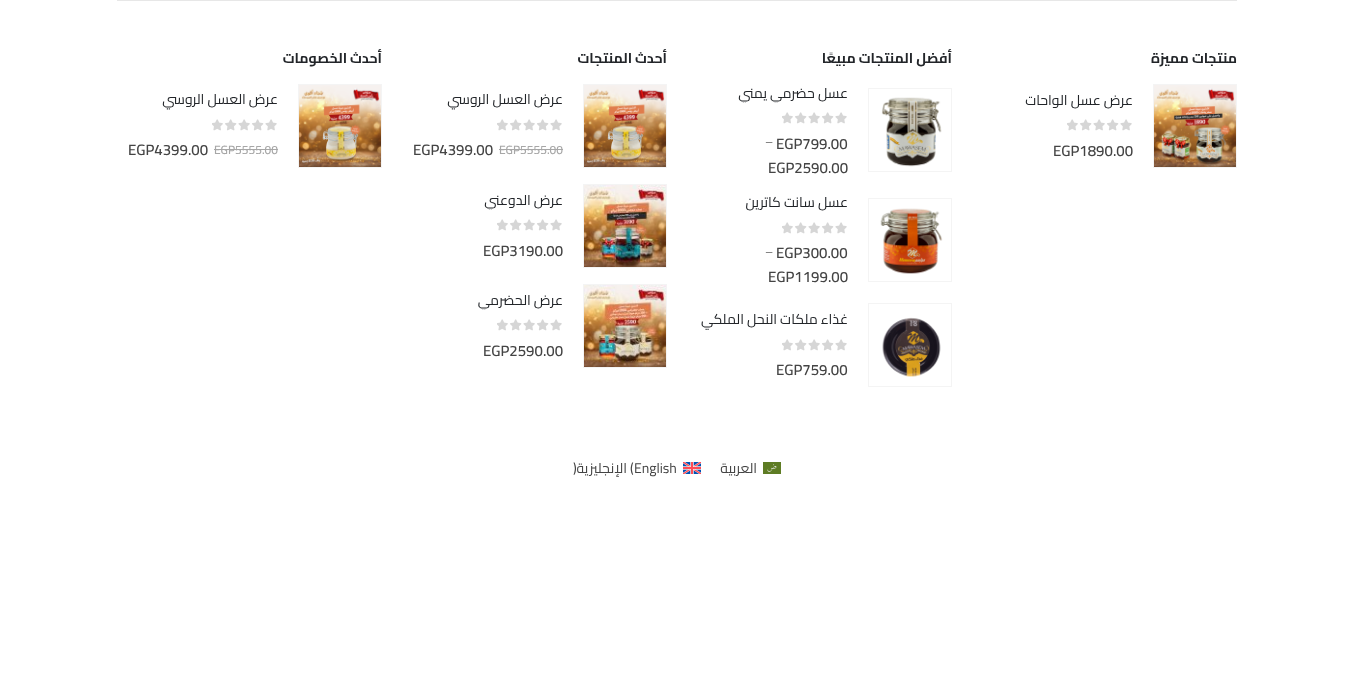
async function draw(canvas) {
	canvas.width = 1354;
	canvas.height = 700;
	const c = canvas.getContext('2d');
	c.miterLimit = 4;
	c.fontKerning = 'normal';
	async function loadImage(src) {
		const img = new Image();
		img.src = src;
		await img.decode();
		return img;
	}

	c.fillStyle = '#fff';
	c.fillRect(0, 0, 1354, 700);
	c.fillStyle = '#e7e7e7';
	c.fillRect(117, 0, 1120, 1);
	c.direction = 'rtl';
	c.font = 'bold 14px Cairo';
	c.fillStyle = '#222529';
	c.fillText('منتجات مميزة', 1237, 63);
	c.strokeStyle = '#f4f4f4';
	c.strokeRect(1153.5, 84.5, 83, 83);
	c.drawImage(await loadImage('img1.png'), 1154, 85, 82, 82);
	c.font = '14px Cairo';
	c.fillText('عرض عسل الواحات', 1133, 105);
	c.drawImage(await loadImage('img2.png'), 1067, 119, 65, 12);
	c.direction = 'ltr';
	c.font = '600 15px Cairo';
	c.fillStyle = '#444';
	c.fillText('EGP1890.00', 1053, 156);
	c.direction = 'rtl';
	c.font = 'bold 14px Cairo';
	c.fillStyle = '#222529';
	c.fillText('أفضل المنتجات مبيعًا', 952, 63);
	c.strokeRect(868.5, 88.5, 83, 83);
	c.drawImage(await loadImage('img3.png'), 881, 97, 61, 70);
	c.save();
	c.beginPath();
	c.rect(687, 84, 161, 19);
	c.clip();
	c.font = '14px Cairo';
	c.fillText('عسل حضرمي يمني', 848, 98);
	c.restore();
	c.drawImage(await loadImage('img2.png'), 782, 112, 65, 12);
	c.direction = 'ltr';
	c.font = '600 15px Cairo';
	c.fillStyle = '#444';
	c.fillText('EGP799.00', 776, 149);
	c.font = '13px Cairo';
	c.fillStyle = '#777';
	c.fillText('–', 765, 146);
	c.font = '600 15px Cairo';
	c.fillStyle = '#444';
	c.fillText('EGP2590.00', 768, 173);
	c.strokeRect(868.5, 198.5, 83, 83);
	c.drawImage(await loadImage('img4.png'), 880, 208, 63, 66);
	c.direction = 'rtl';
	c.font = '14px Cairo';
	c.fillStyle = '#222529';
	c.fillText('عسل سانت كاترين', 848, 207);
	c.drawImage(await loadImage('img2.png'), 782, 222, 65, 12);
	c.direction = 'ltr';
	c.font = '600 15px Cairo';
	c.fillStyle = '#444';
	c.fillText('EGP300.00', 776, 258);
	c.font = '13px Cairo';
	c.fillStyle = '#777';
	c.fillText('–', 765, 256);
	c.font = '600 15px Cairo';
	c.fillStyle = '#444';
	c.fillText('EGP1199.00', 768, 282);
	c.strokeRect(868.5, 303.5, 83, 83);
	c.drawImage(await loadImage('img5.png'), 882, 317, 59, 60);
	c.direction = 'rtl';
	c.font = '14px Cairo';
	c.fillStyle = '#222529';
	c.fillText('غذاء ملكات النحل الملكي', 848, 324);
	c.drawImage(await loadImage('img2.png'), 782, 339, 65, 12);
	c.direction = 'ltr';
	c.font = '600 15px Cairo';
	c.fillStyle = '#444';
	c.fillText('EGP759.00', 776, 375);
	c.direction = 'rtl';
	c.font = 'bold 14px Cairo';
	c.fillStyle = '#222529';
	c.fillText('أحدث المنتجات', 667, 63);
	c.strokeRect(583.5, 84.5, 83, 83);
	c.drawImage(await loadImage('img6.png'), 584, 85, 82, 82);
	c.font = '14px Cairo';
	c.fillText('عرض العسل الروسي', 563, 104);
	c.drawImage(await loadImage('img2.png'), 497, 119, 65, 12);
	c.direction = 'ltr';
	c.font = '600 12px Cairo';
	c.fillStyle = '#a7a7a7';
	c.fillText('EGP5555.00', 499, 154);
	c.fillRect(499, 149, 64, 1);
	c.font = '600 15px Cairo';
	c.fillStyle = '#444';
	c.fillText('EGP4399.00', 413, 155);
	c.strokeRect(583.5, 184.5, 83, 83);
	c.drawImage(await loadImage('img7.png'), 584, 185, 82, 82);
	c.save();
	c.beginPath();
	c.rect(402, 191, 161, 19);
	c.clip();
	c.direction = 'rtl';
	c.font = '14px Cairo';
	c.fillStyle = '#222529';
	c.fillText('عرض الدوعني', 563, 205);
	c.restore();
	c.drawImage(await loadImage('img2.png'), 497, 219, 65, 12);
	c.fillText('EGP3190.00', 483, 256);
	c.strokeRect(583.5, 284.5, 83, 83);
	c.drawImage(await loadImage('img8.png'), 584, 285, 82, 82);
	c.save();
	c.beginPath();
	c.rect(402, 291, 161, 19);
	c.clip();
	c.direction = 'rtl';
	c.font = '14px Cairo';
	c.fillStyle = '#222529';
	c.fillText('عرض الحضرمي', 563, 305);
	c.restore();
	c.drawImage(await loadImage('img2.png'), 497, 319, 65, 12);
	c.fillText('EGP2590.00', 483, 356);
	c.direction = 'rtl';
	c.font = 'bold 14px Cairo';
	c.fillStyle = '#222529';
	c.fillText('أحدث الخصومات', 382, 63);
	c.strokeRect(298.5, 84.5, 83, 83);
	c.drawImage(await loadImage('img6.png'), 299, 85, 82, 82);
	c.font = '14px Cairo';
	c.fillText('عرض العسل الروسي', 278, 104);
	c.drawImage(await loadImage('img2.png'), 212, 119, 65, 12);
	c.direction = 'ltr';
	c.font = '600 12px Cairo';
	c.fillStyle = '#a7a7a7';
	c.fillText('EGP5555.00', 214, 154);
	c.fillRect(214, 149, 64, 1);
	c.font = '600 15px Cairo';
	c.fillStyle = '#444';
	c.fillText('EGP4399.00', 128, 155);
	c.drawImage(await loadImage('img9.png'), 763, 462, 18, 12);
	c.direction = 'rtl';
	c.font = '14px Cairo';
	c.fillText('العربية', 757, 473);
	c.drawImage(await loadImage('img10.png'), 683, 462, 18, 12);
	c.direction = 'ltr';
	c.fillText('English', 634, 473);
	c.fillText('(', 630, 473);
	c.direction = 'rtl';
	c.fillText('الإنجليزية', 627, 473);
	c.direction = 'ltr';
	c.fillText(')', 573, 473);
}

draw(document.querySelector('canvas'));
